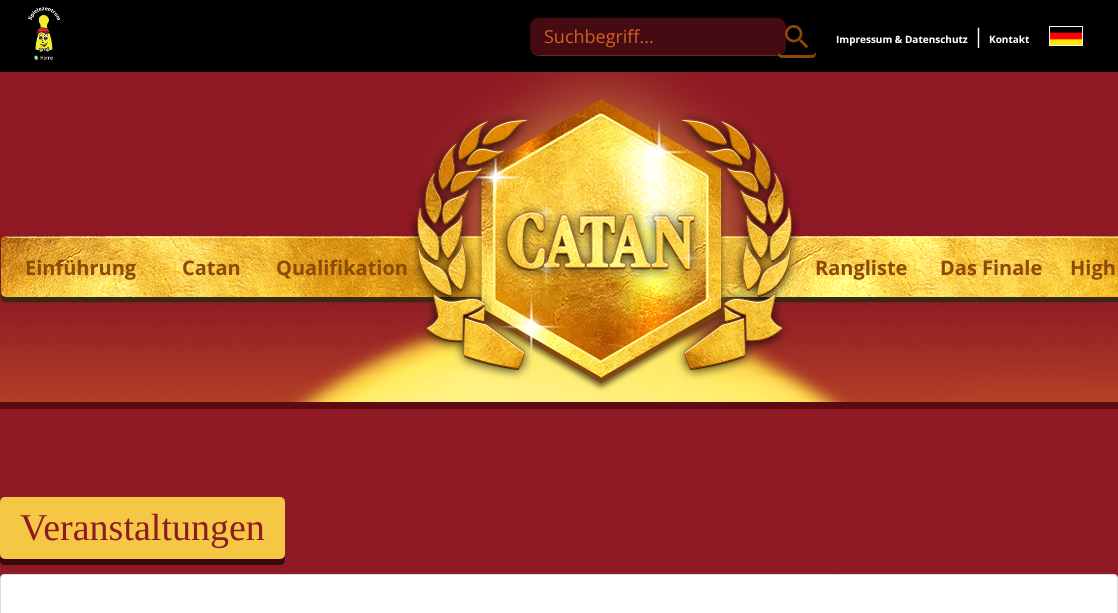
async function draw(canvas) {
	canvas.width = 1118;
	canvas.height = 613;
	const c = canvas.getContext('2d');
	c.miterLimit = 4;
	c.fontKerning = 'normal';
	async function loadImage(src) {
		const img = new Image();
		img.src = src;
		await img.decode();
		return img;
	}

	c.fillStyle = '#5d0a12';
	c.fillRect(0, 0, 1118, 613);
	c.fillStyle = '#000';
	c.fillRect(0, 0, 1118, 72);
	c.drawImage(await loadImage('img1.png'), 28, 7, 32, 53);
	c.fillStyle = '#652f10';
	c.beginPath();
	c.moveTo(530, 45);
	c.lineTo(530, 46);
	c.bezierCurveTo(530, 52, 534, 56, 540, 56);
	c.lineTo(776, 56);
	c.bezierCurveTo(782, 56, 786, 52, 786, 46);
	c.lineTo(786, 45);
	c.bezierCurveTo(786, 51, 782, 55, 776, 55);
	c.lineTo(540, 55);
	c.bezierCurveTo(534, 55, 530, 51, 530, 45);
	c.closePath();
	c.fill();
	c.fillStyle = '#440c12';
	c.beginPath();
	c.roundRect(530, 17, 256, 38, 10);
	c.fill();
	c.fillStyle = '#000000ad';
	c.beginPath();
	c.moveTo(540, 18);
	c.lineTo(776, 18);
	c.bezierCurveTo(782, 18, 786, 22, 786, 28);
	c.lineTo(786, 27);
	c.bezierCurveTo(786, 21, 782, 17, 776, 17);
	c.lineTo(540, 17);
	c.bezierCurveTo(534, 17, 530, 21, 530, 27);
	c.lineTo(530, 28);
	c.bezierCurveTo(530, 22, 534, 18, 540, 18);
	c.closePath();
	c.fill();
	c.font = '18px Open Sans';
	c.fillStyle = '#d36021';
	c.fillText('Suchbegriff...', 544, 43);
	c.fillStyle = '#8d4906';
	c.beginPath();
	c.moveTo(778, 51);
	c.bezierCurveTo(778, 58.5, 779.5, 58, 787, 58);
	c.lineTo(807, 58);
	c.bezierCurveTo(814.5, 58, 816, 58.5, 816, 51);
	c.bezierCurveTo(816, 53, 814, 55, 812, 55);
	c.lineTo(782, 55);
	c.bezierCurveTo(780, 55, 778, 53, 778, 51);
	c.closePath();
	c.fill();
	c.drawImage(await loadImage('img2.png'), 785, 25, 24, 24);
	c.font = 'bold 10px Open Sans';
	c.fillStyle = '#fff';
	c.fillText('Impressum & Datenschutz', 836, 43);
	c.font = '20px Open Sans';
	c.fillText('|', 973, 43);
	c.font = 'bold 10px Open Sans';
	c.fillText('Kontakt', 989, 43);
	c.drawImage(await loadImage('img3.png'), 1049, 26, 34, 20);
	c.drawImage(await loadImage('img4.png'), 0, 72, 1118, 330);
	c.drawImage(await loadImage('img5.png'), 0, 72, 1118, 330);
	c.font = 'bold 20px Open Sans';
	c.fillStyle = '#8d4906';
	for (const [text, x, y] of [
		['Einführung', 25, 275],
		['Catan', 182, 275],
		['Qualifikation', 276, 275],
		['Rangliste', 815, 275],
		['Das Finale', 940, 275],
		['High', 1070, 275],
	]) {
		c.fillText(text, x, y);
	}
	c.fillStyle = '#8f1a25';
	c.fillRect(0, 409, 1118, 169);
	c.fillStyle = '#390a0f';
	c.beginPath();
	c.moveTo(0, 554);
	c.lineTo(0, 560);
	c.bezierCurveTo(0, 563, 2, 565, 5, 565);
	c.lineTo(280, 565);
	c.bezierCurveTo(283, 565, 285, 563, 285, 560);
	c.lineTo(285, 554);
	c.bezierCurveTo(285, 557, 283, 559, 280, 559);
	c.lineTo(5, 559);
	c.bezierCurveTo(2, 559, 0, 557, 0, 554);
	c.closePath();
	c.fill();
	c.fillStyle = '#f4c745';
	c.beginPath();
	c.roundRect(0, 497, 285, 62, 5);
	c.fill();
	c.font = '38px Liberation Serif';
	c.fillStyle = '#8f1a25';
	c.fillText('Veranstaltungen', 20, 540);
	c.fillStyle = '#fff';
	c.beginPath();
	c.roundRect(0.5, 574.5, 1117, 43, 3.5);
	c.fill();
	c.strokeStyle = '#ddd';
	c.stroke();
}

draw(document.querySelector('canvas'));
